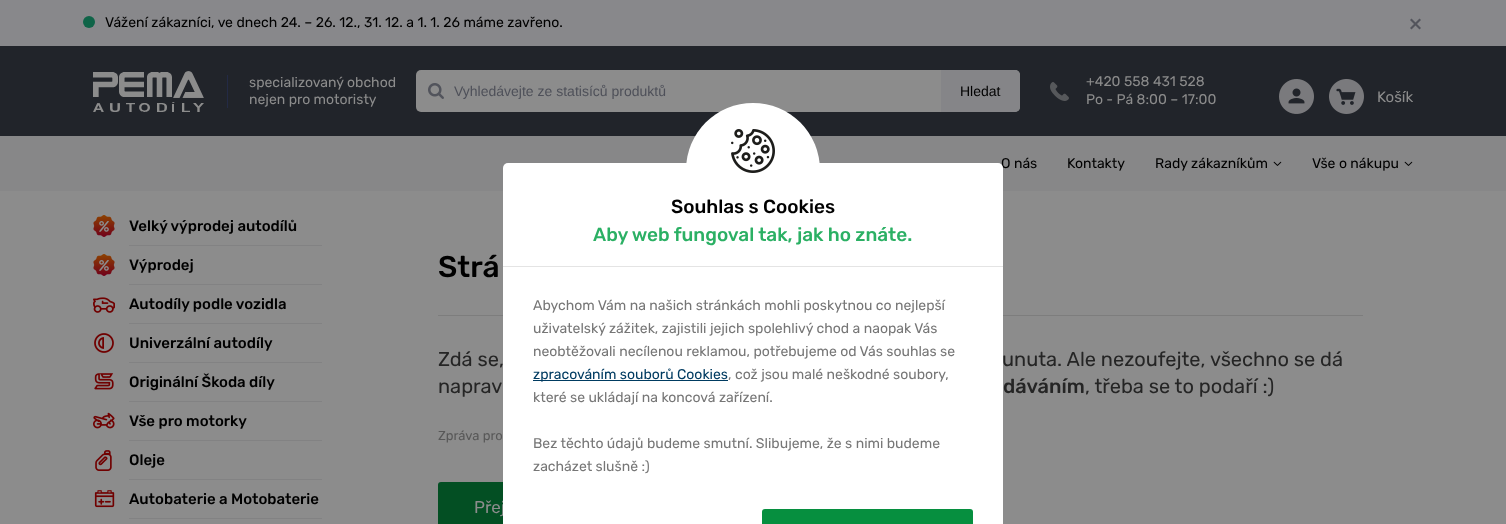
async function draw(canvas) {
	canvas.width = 1506;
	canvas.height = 524;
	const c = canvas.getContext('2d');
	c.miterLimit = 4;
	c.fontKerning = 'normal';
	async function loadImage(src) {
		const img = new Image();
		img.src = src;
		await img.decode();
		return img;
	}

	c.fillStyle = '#8c8c8c';
	c.fillRect(0, 0, 1506, 524);
	c.fillStyle = '#88888b';
	c.fillRect(0, 0, 1506, 46);
	c.fillStyle = '#0f6448';
	c.beginPath();
	c.arc(89, 22, 6, 0, 2 * Math.PI);
	c.fill();
	c.font = '14px Rubik';
	c.fillStyle = '#000';
	c.fillText('Vážení zákazníci, ve dnech 24. – 26. 12., 31. 12. a 1. 1. 26 máme zavřeno.', 105, 27);
	c.fillStyle = '#53545c';
	c.beginPath();
	c.moveTo(1419.5, 18.5);
	c.lineTo(1421, 20);
	c.lineTo(1411.5, 29.5);
	c.lineTo(1410, 28);
	c.closePath();
	c.fill();
	c.beginPath();
	c.moveTo(1410, 20);
	c.lineTo(1411.5, 18.5);
	c.lineTo(1421, 28);
	c.lineTo(1419.5, 29.5);
	c.closePath();
	c.fill();
	c.fillStyle = '#21242a';
	c.fillRect(0, 46, 1506, 90);
	c.drawImage(await loadImage('img1.png'), 93, 71, 111, 41);
	c.fillStyle = '#232a45';
	c.fillRect(227, 75, 1, 33);
	c.fillStyle = '#8c8c8c';
	c.fillText('specializovaný obchod', 249, 87);
	c.fillText('nejen pro motoristy', 249, 104);
	c.beginPath();
	c.roundRect(416, 70, 604, 42, 5);
	c.fill();
	c.drawImage(await loadImage('img2.png'), 428, 83, 16, 16);
	c.font = '14px Liberation Sans';
	c.fillStyle = '#4e5059';
	c.fillText('Vyhledávejte ze statisíců produktů', 454, 96);
	c.fillStyle = '#858588';
	c.beginPath();
	c.roundRect(941, 70, 79, 42, [0, 5, 5, 0]);
	c.fill();
	c.fillStyle = '#000';
	c.fillText('Hledat', 960, 96);
	c.drawImage(await loadImage('img3.png'), 1050, 82, 19, 19);
	c.font = '14px Rubik';
	c.fillStyle = '#8c8c8c';
	c.fillText('+420 558 431 528', 1086, 86);
	c.fillText('Po - Pá 8:00 – 17:00', 1086, 104);
	c.drawImage(await loadImage('img4.png'), 1279, 79, 35, 35);
	c.drawImage(await loadImage('img5.png'), 1329, 79, 35, 35);
	c.font = '15px Rubik';
	c.fillText('Košík', 1377, 102);
	c.fillStyle = '#878788';
	c.fillRect(0, 136, 1506, 55);
	c.font = '14px Rubik';
	c.fillStyle = '#000';
	for (const [text, x, y] of [
		['O nás', 1001, 168],
		['Kontakty', 1067, 168],
		['Rady zákazníkům', 1155, 168],
	]) {
		c.fillText(text, x, y);
	}
	c.drawImage(await loadImage('img6.png'), 1273, 161, 9, 5);
	c.fillText('Vše o nákupu', 1312, 168);
	c.drawImage(await loadImage('img6.png'), 1404, 161, 9, 5);
	c.drawImage(await loadImage('img7.png'), 93, 215, 22, 22);
	c.font = '500 15px Rubik';
	c.fillText('Velký výprodej autodílů', 129, 231);
	c.fillStyle = '#828283';
	c.fillRect(129, 245, 193, 1);
	c.drawImage(await loadImage('img7.png'), 93, 254, 22, 22);
	c.fillStyle = '#000';
	c.fillText('Výprodej', 129, 270);
	c.fillStyle = '#828283';
	c.fillRect(129, 284, 193, 1);
	c.drawImage(await loadImage('img8.png'), 93, 297, 22, 16);
	c.fillStyle = '#000';
	c.fillText('Autodíly podle vozidla', 129, 309);
	c.fillStyle = '#828283';
	c.fillRect(129, 323, 193, 1);
	c.drawImage(await loadImage('img9.png'), 94, 333, 20, 20);
	c.fillStyle = '#000';
	c.fillText('Univerzální autodíly', 129, 348);
	c.fillStyle = '#828283';
	c.fillRect(129, 362, 193, 1);
	c.drawImage(await loadImage('img10.png'), 94, 373, 20, 17);
	c.fillStyle = '#000';
	c.fillText('Originální Škoda díly', 129, 387);
	c.fillStyle = '#828283';
	c.fillRect(129, 401, 193, 1);
	c.drawImage(await loadImage('img11.png'), 93, 412, 22, 17);
	c.fillStyle = '#000';
	c.fillText('Vše pro motorky', 129, 426);
	c.fillStyle = '#828283';
	c.fillRect(129, 440, 193, 1);
	c.drawImage(await loadImage('img12.png'), 95, 450, 17, 21);
	c.fillStyle = '#000';
	c.fillText('Oleje', 129, 465);
	c.fillStyle = '#828283';
	c.fillRect(129, 479, 193, 1);
	c.drawImage(await loadImage('img13.png'), 94, 490, 21, 18);
	c.fillStyle = '#000';
	c.fillText('Autobaterie a Motobaterie', 129, 504);
	c.fillStyle = '#828283';
	c.fillRect(129, 518, 193, 1);
	c.fillStyle = '#7d7d7d';
	c.fillRect(438, 315, 925, 1);
	c.font = '500 30px Rubik';
	c.fillStyle = '#000';
	c.fillText('Strá', 438, 277);
	c.font = '20px Rubik';
	c.fillStyle = '#252525';
	for (const [text, x, y] of [
		['Zdá se,', 438, 366],
		['unuta. Ale nezoufejte, všechno se dá', 1002, 366],
		['naprav', 438, 393],
	]) {
		c.fillText(text, x, y);
	}
	c.font = '500 20px Rubik';
	c.fillText('dáváním', 1003, 393);
	c.font = '20px Rubik';
	c.fillText(', třeba se to podaří :)', 1085, 393);
	c.font = '13px Rubik';
	c.fillStyle = '#585858';
	c.fillText('Zpráva pro', 438, 440);
	c.fillStyle = '#034f23';
	c.beginPath();
	c.roundRect(438, 482, 260, 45, 3);
	c.fill();
	c.font = '17px Rubik';
	c.fillStyle = '#8c8c8c';
	c.fillText('Přej', 474, 513);
	c.fillStyle = '#fff';
	c.beginPath();
	c.roundRect(503, 163, 500, 361, [5, 5, 0, 0]);
	c.fill();
	c.beginPath();
	c.roundRect(686, 103, 134, 70, [67, 67, 0, 0]);
	c.fill();
	c.drawImage(await loadImage('img14.png'), 731, 129, 44, 44);
	c.font = '500 19px Rubik';
	c.fillStyle = '#000';
	c.fillText('Souhlas s Cookies', 671, 213);
	c.fillStyle = '#2bb064';
	c.fillText('Aby web fungoval tak, jak ho znáte.', 593, 241);
	c.fillStyle = '#e4e4e4';
	c.fillRect(503, 266, 500, 1);
	c.font = '14px Rubik';
	c.fillStyle = '#767676';
	for (const [text, x, y] of [
		['Abychom Vám na našich stránkách mohli poskytnou co nejlepší', 533, 310],
		['uživatelský zážitek, zajistili jejich spolehlivý chod a naopak Vás', 533, 333],
		['neobtěžovali necílenou reklamou, potřebujeme od Vás souhlas se', 533, 356],
	]) {
		c.fillText(text, x, y);
	}
	c.fillStyle = '#003b61';
	c.fillRect(533, 380, 195, 1);
	c.fillText('zpracováním souborů Cookies', 533, 379);
	c.fillStyle = '#767676';
	for (const [text, x, y] of [
		[', což jsou malé neškodné soubory,', 728, 379],
		['které se ukládají na koncová zařízení.', 533, 402],
		['Bez těchto údajů budeme smutní. Slibujeme, že s nimi budeme', 533, 448],
		['zacházet slušně :)', 533, 471],
	]) {
		c.fillText(text, x, y);
	}
	c.fillStyle = '#068f3f';
	c.beginPath();
	c.roundRect(762, 509, 211, 15, [3, 3, 0, 0]);
	c.fill();
}

draw(document.querySelector('canvas'));
